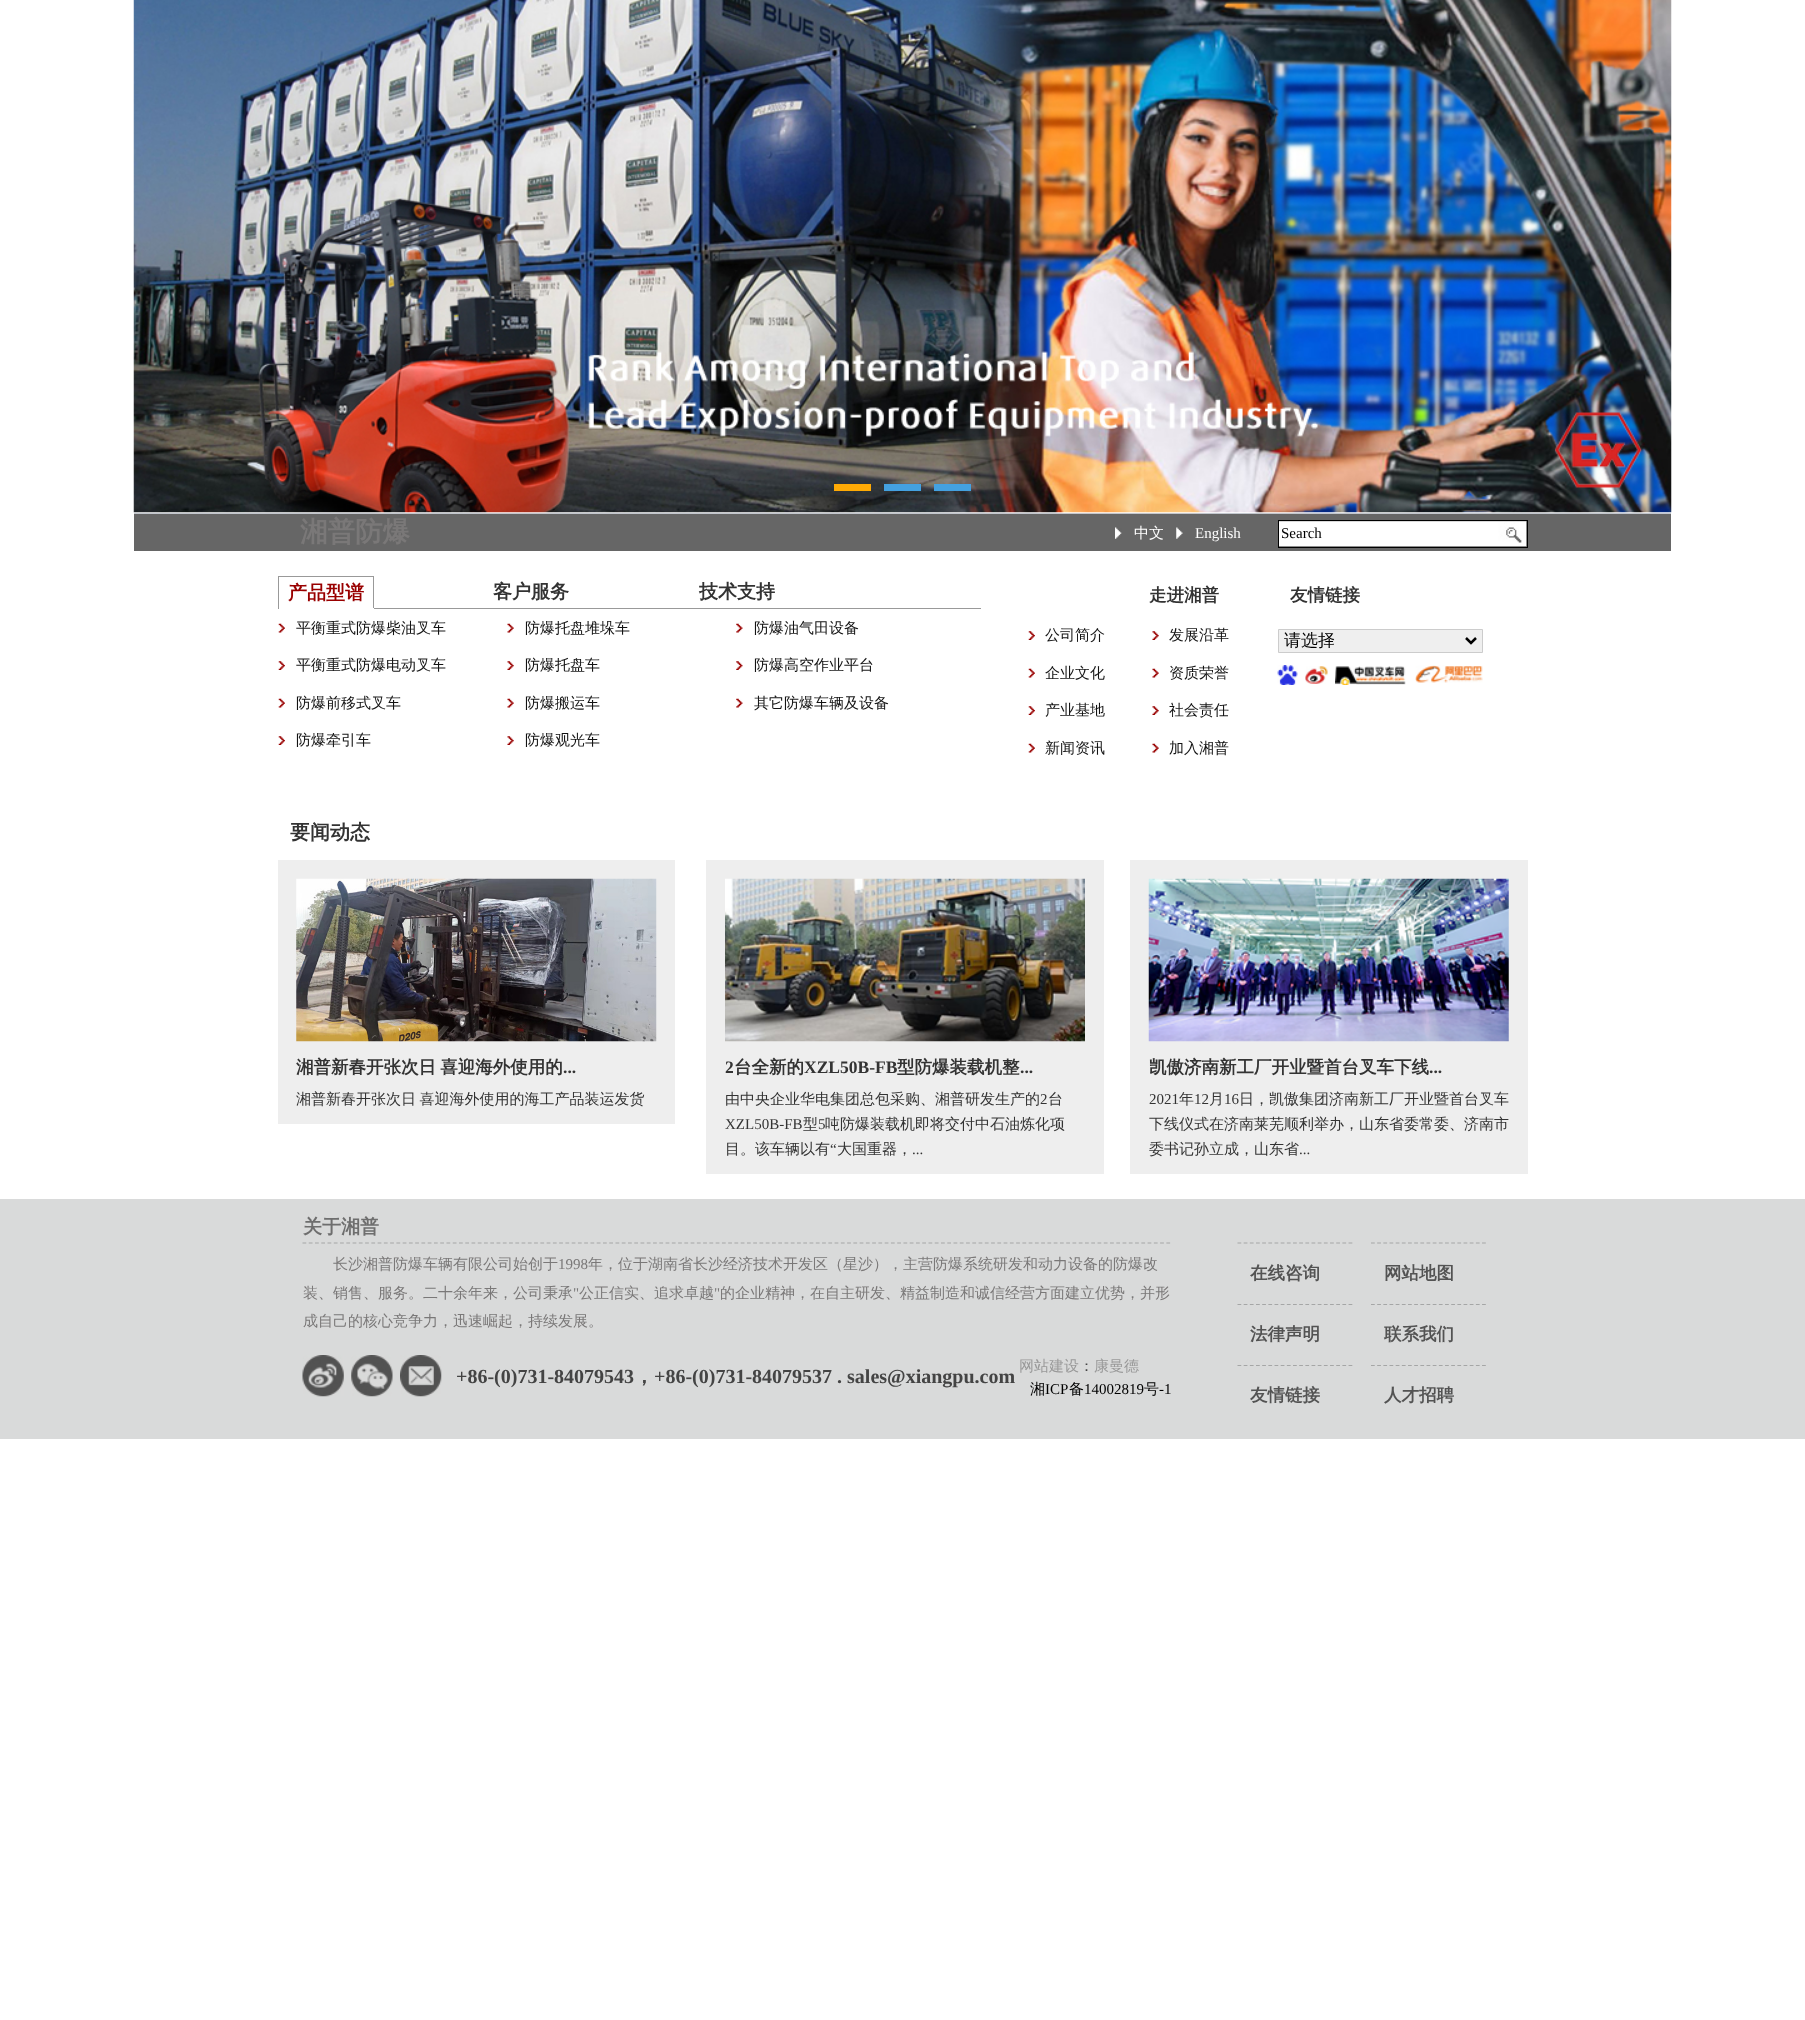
async function draw(canvas) {
	canvas.width = 1805;
	canvas.height = 2020;
	const c = canvas.getContext('2d');
	c.miterLimit = 4;
	c.fontKerning = 'normal';
	async function loadImage(src) {
		const img = new Image();
		img.src = src;
		await img.decode();
		return img;
	}

	c.fillStyle = '#fff';
	c.fillRect(0, 0, 1805, 2020);
	c.drawImage(await loadImage('img1.png'), 133, 0, 1539, 513);
	for (const [x, y, w, h, color] of [
		[834, 484, 37, 7, '#ffaa05'],
		[884, 484, 37, 7, '#44a1e0'],
		[934, 484, 37, 7, '#44a1e0'],
		[134, 514, 1537, 37, '#666'],
		[134, 513, 1537, 1, '#c3c7ce'],
	]) {
		c.fillStyle = color;
		c.fillRect(x, y, w, h);
	}
	c.font = 'bold 27.5px WenQuanYi Zen Hei';
	c.fillStyle = '#7a7878';
	c.fillText('湘普防爆', 300, 541);
	c.drawImage(await loadImage('img2.png'), 1115, 527, 7, 12);
	c.font = '500 15px WenQuanYi Zen Hei';
	c.fillStyle = '#fff';
	c.fillText('中文', 1134, 538);
	c.drawImage(await loadImage('img3.png'), 1176, 527, 7, 12);
	c.font = '15px Liberation Serif';
	c.fillText('English', 1195, 538);
	c.drawImage(await loadImage('img4.png'), 1279, 521, 248, 26);
	c.strokeStyle = '#000';
	c.strokeRect(1278.5, 520.5, 249, 27);
	c.fillStyle = '#000';
	c.fillText('Search', 1281, 538);
	for (const [x, y, w, h, color] of [
		[374, 608, 607, 1, '#999'],
		[278, 576, 96, 1, '#999'],
		[373, 576, 1, 33, '#999'],
		[373, 608, 1, 1, '#fff'],
		[278, 576, 1, 33, '#999'],
	]) {
		c.fillStyle = color;
		c.fillRect(x, y, w, h);
	}
	c.font = 'bold 19px WenQuanYi Zen Hei';
	c.fillStyle = '#900';
	c.fillText('产品型谱', 288, 599);
	c.fillStyle = '#333';
	c.fillText('客户服务', 493, 598);
	c.fillText('技术支持', 699, 598);
	c.drawImage(await loadImage('img5.png'), 278, 623, 7, 10);
	c.font = '500 15px WenQuanYi Zen Hei';
	c.fillStyle = '#131313';
	c.fillText('平衡重式防爆柴油叉车', 296, 633);
	c.drawImage(await loadImage('img6.png'), 507, 623, 7, 10);
	c.fillText('防爆托盘堆垛车', 525, 633);
	c.drawImage(await loadImage('img7.png'), 736, 623, 7, 10);
	c.fillText('防爆油气田设备', 754, 633);
	c.drawImage(await loadImage('img8.png'), 278, 661, 7, 9);
	c.fillText('平衡重式防爆电动叉车', 296, 670);
	c.drawImage(await loadImage('img9.png'), 507, 661, 7, 9);
	c.fillText('防爆托盘车', 525, 670);
	c.drawImage(await loadImage('img10.png'), 736, 661, 7, 9);
	c.fillText('防爆高空作业平台', 754, 670);
	c.drawImage(await loadImage('img5.png'), 278, 698, 7, 10);
	c.fillText('防爆前移式叉车', 296, 708);
	c.drawImage(await loadImage('img6.png'), 507, 698, 7, 10);
	c.fillText('防爆搬运车', 525, 708);
	c.drawImage(await loadImage('img7.png'), 736, 698, 7, 10);
	c.fillText('其它防爆车辆及设备', 754, 708);
	c.drawImage(await loadImage('img8.png'), 278, 736, 7, 9);
	c.fillText('防爆牵引车', 296, 745);
	c.drawImage(await loadImage('img9.png'), 507, 736, 7, 9);
	c.fillText('防爆观光车', 525, 745);
	c.font = 'bold 17.5px WenQuanYi Zen Hei';
	c.fillStyle = '#333';
	c.fillText('走进湘普', 1149, 601);
	c.drawImage(await loadImage('img11.png'), 1028, 631, 7, 9);
	c.font = '500 15px WenQuanYi Zen Hei';
	c.fillStyle = '#131313';
	c.fillText('公司简介', 1045, 640);
	c.drawImage(await loadImage('img12.png'), 1152, 631, 7, 9);
	c.fillText('发展沿革', 1169, 640);
	c.drawImage(await loadImage('img13.png'), 1028, 668, 7, 10);
	c.fillText('企业文化', 1045, 678);
	c.drawImage(await loadImage('img14.png'), 1152, 668, 7, 10);
	c.fillText('资质荣誉', 1169, 678);
	c.drawImage(await loadImage('img11.png'), 1028, 706, 7, 9);
	c.fillText('产业基地', 1045, 715);
	c.drawImage(await loadImage('img12.png'), 1152, 706, 7, 9);
	c.fillText('社会责任', 1169, 715);
	c.drawImage(await loadImage('img13.png'), 1028, 743, 7, 10);
	c.fillText('新闻资讯', 1045, 753);
	c.drawImage(await loadImage('img14.png'), 1152, 743, 7, 10);
	c.fillText('加入湘普', 1169, 753);
	c.font = 'bold 17.5px WenQuanYi Zen Hei';
	c.fillStyle = '#333';
	c.fillText('友情链接', 1290, 601);
	c.fillStyle = '#efefef';
	c.beginPath();
	c.rect(1278.5, 629.5, 204, 23);
	c.fill();
	c.strokeStyle = '#ccc';
	c.stroke();
	c.beginPath();
	c.moveTo(1466, 638);
	c.lineTo(1471, 643);
	c.lineTo(1476, 638);
	c.strokeStyle = '#000';
	c.lineWidth = 2.5;
	c.stroke();
	c.font = '500 17px WenQuanYi Zen Hei';
	c.fillStyle = '#000';
	c.fillText('请选择', 1284, 646);
	c.drawImage(await loadImage('img15.png'), 1277, 665, 21, 20);
	c.drawImage(await loadImage('img16.png'), 1305, 666, 23, 18);
	c.drawImage(await loadImage('img17.png'), 1335, 666, 71, 19);
	c.drawImage(await loadImage('img18.png'), 1415, 665, 68, 18);
	c.font = 'bold 20px WenQuanYi Zen Hei';
	c.fillStyle = '#333';
	c.fillText('要闻动态', 290, 839);
	c.fillStyle = '#eee';
	c.fillRect(278, 860, 397, 264);
	c.drawImage(await loadImage('img19.png'), 296, 878, 361, 164);
	c.wordSpacing = '-1px';
	c.font = 'bold 17.5px WenQuanYi Zen Hei';
	c.fillStyle = '#333';
	c.fillText('湘普新春开张次日 喜迎海外使用的', 296, 1073);
	c.wordSpacing = '0px';
	c.font = 'bold 17.5px Liberation Serif';
	c.fillText('...', 563, 1073);
	c.wordSpacing = '-1px';
	c.font = '500 15px WenQuanYi Zen Hei';
	c.fillText('湘普新春开张次日 喜迎海外使用的海工产品装运发货', 296, 1104);
	c.fillStyle = '#eee';
	c.fillRect(706, 860, 398, 314);
	c.drawImage(await loadImage('img20.png'), 725, 878, 360, 164);
	c.wordSpacing = '0px';
	c.font = 'bold 17.5px Liberation Serif';
	c.fillStyle = '#333';
	c.fillText('2', 725, 1073);
	c.font = 'bold 17.5px WenQuanYi Zen Hei';
	c.fillText('台全新的', 734, 1073);
	c.font = 'bold 17.5px Liberation Serif';
	c.fillText('XZL50B-FB', 804, 1073);
	c.font = 'bold 17.5px WenQuanYi Zen Hei';
	c.fillText('型防爆装载机整', 897, 1073);
	c.font = 'bold 17.5px Liberation Serif';
	c.fillText('...', 1020, 1073);
	c.font = '500 15px WenQuanYi Zen Hei';
	c.fillText('由中央企业华电集团总包采购、湘普研发生产的', 725, 1104);
	c.font = '15px Liberation Serif';
	c.fillText('2', 1040, 1104);
	c.font = '500 15px WenQuanYi Zen Hei';
	c.fillText('台', 1048, 1104);
	c.font = '15px Liberation Serif';
	c.fillText('XZL50B-FB', 725, 1129);
	c.font = '500 15px WenQuanYi Zen Hei';
	c.fillText('型', 803, 1129);
	c.font = '15px Liberation Serif';
	c.fillText('5', 818, 1129);
	c.font = '500 15px WenQuanYi Zen Hei';
	c.fillText('吨防爆装载机即将交付中石油炼化项', 825, 1129);
	c.fillText('目。该车辆以有', 725, 1154);
	c.font = '15px Liberation Serif';
	c.fillText('“', 830, 1154);
	c.font = '500 15px WenQuanYi Zen Hei';
	c.fillText('大国重器，', 837, 1154);
	c.font = '15px Liberation Serif';
	c.fillText('...', 912, 1154);
	c.fillStyle = '#eee';
	c.fillRect(1130, 860, 398, 314);
	c.drawImage(await loadImage('img21.png'), 1148, 878, 361, 164);
	c.font = 'bold 17.5px WenQuanYi Zen Hei';
	c.fillStyle = '#333';
	c.fillText('凯傲济南新工厂开业暨首台叉车下线', 1149, 1073);
	c.font = 'bold 17.5px Liberation Serif';
	c.fillText('...', 1429, 1073);
	c.font = '15px Liberation Serif';
	c.fillText('2021', 1149, 1104);
	c.font = '500 15px WenQuanYi Zen Hei';
	c.fillText('年', 1179, 1104);
	c.font = '15px Liberation Serif';
	c.fillText('12', 1194, 1104);
	c.font = '500 15px WenQuanYi Zen Hei';
	c.fillText('月', 1209, 1104);
	c.font = '15px Liberation Serif';
	c.fillText('16', 1224, 1104);
	c.font = '500 15px WenQuanYi Zen Hei';
	for (const [text, x, y] of [
		['日，凯傲集团济南新工厂开业暨首台叉车', 1239, 1104],
		['下线仪式在济南莱芜顺利举办，山东省委常委、济南市', 1149, 1129],
		['委书记孙立成，山东省', 1149, 1154],
	]) {
		c.fillText(text, x, y);
	}
	c.font = '15px Liberation Serif';
	c.fillText('...', 1299, 1154);
	c.fillStyle = '#d9dada';
	c.fillRect(0, 1199, 1805, 240);
	c.beginPath();
	c.moveTo(302.5, 1243);
	c.lineTo(1171, 1243);
	c.strokeStyle = '#a5a6a6';
	c.lineWidth = 1.2;
	c.setLineDash([3.75, 2.51]);
	c.stroke();
	c.font = 'bold 19px WenQuanYi Zen Hei';
	c.fillStyle = '#6e6e6e';
	c.fillText('关于湘普', 303, 1233);
	c.font = '500 15px WenQuanYi Zen Hei';
	c.fillStyle = '#7a7878';
	c.fillText('长沙湘普防爆车辆有限公司始创于', 333, 1269);
	c.font = '15px Liberation Serif';
	c.fillText('1998', 558, 1269);
	c.font = '500 15px WenQuanYi Zen Hei';
	c.fillText('年，位于湖南省长沙经济技术开发区（星沙），主营防爆系统研发和动力设备的防爆改', 588, 1269);
	c.fillText('装、销售、服务。二十余年来，公司秉承', 303, 1298);
	c.font = '15px Liberation Serif';
	c.fillText('"', 573, 1298);
	c.font = '500 15px WenQuanYi Zen Hei';
	c.fillText('公正信实、追求卓越', 579, 1298);
	c.font = '15px Liberation Serif';
	c.fillText('"', 714, 1298);
	c.font = '500 15px WenQuanYi Zen Hei';
	c.fillText('的企业精神，在自主研发、精益制造和诚信经营方面建立优势，并形', 720, 1298);
	c.fillText('成自己的核心竞争力，迅速崛起，持续发展。', 303, 1326);
	c.drawImage(await loadImage('img22.png'), 302, 1355, 42, 42);
	c.drawImage(await loadImage('img23.png'), 351, 1355, 42, 42);
	c.drawImage(await loadImage('img24.png'), 400, 1355, 42, 42);
	c.fillStyle = '#999';
	c.fillText('网站建设', 1019, 1371);
	c.fillStyle = '#444';
	c.fillText('：', 1079, 1371);
	c.fillStyle = '#999';
	c.fillText('康曼德', 1094, 1371);
	c.font = 'bold 20px Liberation Serif';
	c.fillStyle = '#444';
	c.fillText('+86-(0)731-84079543', 456, 1383);
	c.font = 'bold 20px WenQuanYi Zen Hei';
	c.fillText('，', 634, 1383);
	c.font = 'bold 20px Liberation Serif';
	c.fillText('+86-(0)731-84079537 . sales@xiangpu.com', 654, 1383);
	c.font = '500 15px WenQuanYi Zen Hei';
	c.fillStyle = '#000';
	c.fillText('湘', 1030, 1394);
	c.font = '15px Liberation Serif';
	c.fillText('ICP', 1045, 1394);
	c.font = '500 15px WenQuanYi Zen Hei';
	c.fillText('备', 1069, 1394);
	c.font = '15px Liberation Serif';
	c.fillText('14002819', 1084, 1394);
	c.font = '500 15px WenQuanYi Zen Hei';
	c.fillText('号', 1144, 1394);
	c.font = '15px Liberation Serif';
	c.fillText('-1', 1159, 1394);
	c.beginPath();
	c.moveTo(1237.5, 1243);
	c.lineTo(1352.5, 1243);
	c.setLineDash([3.75, 2.42]);
	c.stroke();
	c.font = 'bold 17.5px WenQuanYi Zen Hei';
	c.fillStyle = '#535353';
	c.fillText('在线咨询', 1250, 1279);
	c.beginPath();
	c.moveTo(1371, 1243);
	c.lineTo(1486, 1243);
	c.stroke();
	c.fillText('网站地图', 1384, 1279);
	c.beginPath();
	c.moveTo(1237.5, 1304.5);
	c.lineTo(1352.5, 1304.5);
	c.stroke();
	c.fillText('法律声明', 1250, 1340);
	c.beginPath();
	c.moveTo(1371, 1304.5);
	c.lineTo(1486, 1304.5);
	c.stroke();
	c.fillText('联系我们', 1384, 1340);
	c.beginPath();
	c.moveTo(1237.5, 1365.5);
	c.lineTo(1352.5, 1365.5);
	c.stroke();
	c.fillText('友情链接', 1250, 1401);
	c.beginPath();
	c.moveTo(1371, 1365.5);
	c.lineTo(1486, 1365.5);
	c.stroke();
	c.fillText('人才招聘', 1384, 1401);
}

draw(document.querySelector('canvas'));
